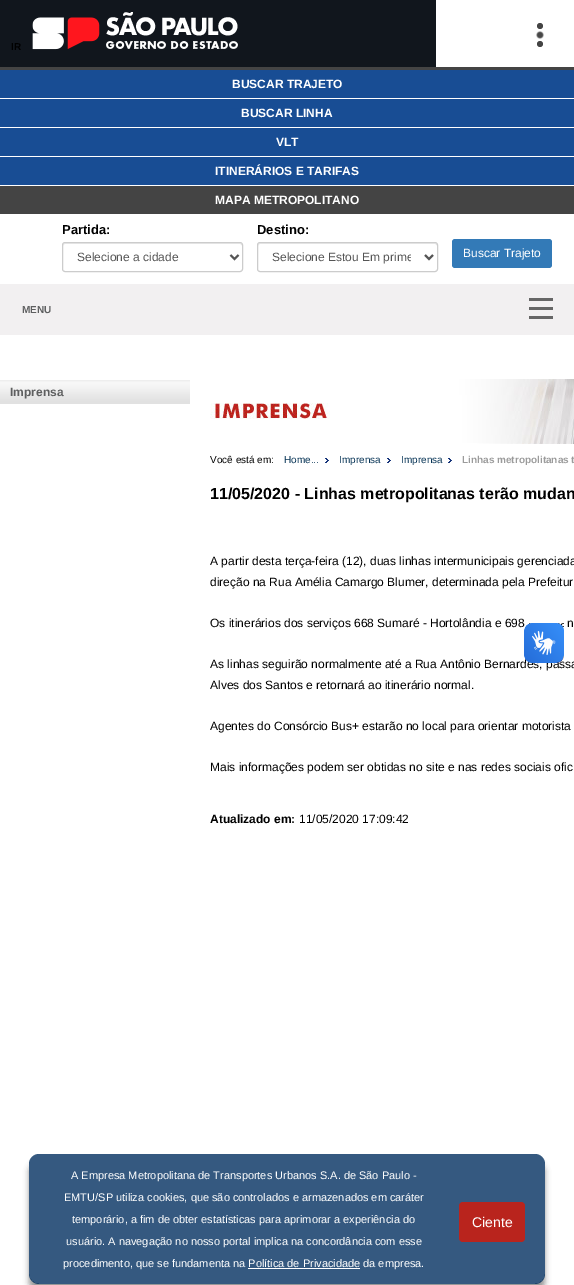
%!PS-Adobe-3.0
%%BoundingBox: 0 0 574 1285
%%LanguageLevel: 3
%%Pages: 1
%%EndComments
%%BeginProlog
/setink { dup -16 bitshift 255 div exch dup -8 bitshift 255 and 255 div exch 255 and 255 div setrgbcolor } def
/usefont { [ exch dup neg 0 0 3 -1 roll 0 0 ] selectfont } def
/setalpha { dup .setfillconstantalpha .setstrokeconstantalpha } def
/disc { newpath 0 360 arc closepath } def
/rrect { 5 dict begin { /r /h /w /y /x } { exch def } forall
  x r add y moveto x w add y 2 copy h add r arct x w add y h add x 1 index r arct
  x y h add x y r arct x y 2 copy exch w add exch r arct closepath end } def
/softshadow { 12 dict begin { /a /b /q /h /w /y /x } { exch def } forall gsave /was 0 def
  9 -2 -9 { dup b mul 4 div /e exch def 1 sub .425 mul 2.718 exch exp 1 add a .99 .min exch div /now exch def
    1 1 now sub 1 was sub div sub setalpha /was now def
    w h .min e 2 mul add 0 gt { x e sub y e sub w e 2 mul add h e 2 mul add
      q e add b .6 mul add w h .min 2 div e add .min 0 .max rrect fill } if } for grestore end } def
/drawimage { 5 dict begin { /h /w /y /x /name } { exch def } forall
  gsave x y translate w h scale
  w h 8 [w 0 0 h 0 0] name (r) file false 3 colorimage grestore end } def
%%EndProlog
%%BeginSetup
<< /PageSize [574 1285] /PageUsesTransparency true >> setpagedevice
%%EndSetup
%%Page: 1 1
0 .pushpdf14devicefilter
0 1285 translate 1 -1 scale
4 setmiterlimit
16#FFFFFF setink
0 0 574 1285 rectfill
16#444444 setink
0 67 574 3 rectfill
16#11161D setink
0 0 436 67 rectfill
/LiberationSans-Bold 10 usefont
16#000000 setink
11 50 moveto (IR) show
(img1.raw) 32 12 206 38 drawimage
16#444444 setink
540 26 3 disc fill
16#000000 setink
537 32 6 6 3 0.5 0.12 softshadow
537 32 6 6 3 0.5 0.16 softshadow
16#444444 setink
537 32 6 6 3 0.5 1 softshadow
540 44 3 disc fill
16#184D94 setink
0 70 574 28 rectfill
/LiberationSans-Bold 12 usefont
16#FFFFFF setink
232 88 moveto (BUSCAR TRAJETO) show
16#184D94 setink
0 99 574 28 rectfill
16#FFFFFF setink
241 117 moveto (BUSCAR LINHA) show
16#184D94 setink
0 128 574 28 rectfill
16#FFFFFF setink
276 146 moveto (VLT) show
16#184D94 setink
0 157 574 28 rectfill
16#FFFFFF setink
215 175 moveto (ITINERÁRIOS E TARIFAS) show
16#444444 setink
0 186 574 28 rectfill
16#FFFFFF setink
215 204 moveto (MAPA METROPOLITANO) show
/LiberationSans-Bold 13 usefont
16#000000 setink
62 234 moveto (Partida:) show
16#EBEBEB setink
65 244 moveto 240 244 lineto 241 244 242 245 242 246 curveto 242 245 242 243 240 243 curveto 64 243 lineto 63 244 63 245 63 246 curveto 63 245 64 244 65 244 curveto closepath fill
16#CCCCCC setink
62.5 242.5 180 29 2.5 rrect stroke
16#555555 setink
2 setlinewidth
230.5 255 moveto 234.5 259 lineto 238.5 255 lineto stroke
/LiberationSans-Regular 12 usefont
77 261 moveto (Selecione a cidade) show
/LiberationSans-Bold 13 usefont
16#000000 setink
257 234 moveto (Destino:) show
16#EBEBEB setink
260 244 moveto 435 244 lineto 436 244 437 245 437 246 curveto 437 245 437 243 435 243 curveto 259 243 lineto 258 244 258 245 258 246 curveto 258 245 259 244 260 244 curveto closepath fill
16#CCCCCC setink
1 setlinewidth
257.5 242.5 180 29 2.5 rrect stroke
16#555555 setink
2 setlinewidth
425 255 moveto 429 259 lineto 433 255 lineto stroke
gsave
272 249 139 16 rectclip
/LiberationSans-Regular 12 usefont
272 261 moveto (Selecione Estou Em prime) show
grestore
16#337AB7 setink
452 239 100 29 3 rrect fill
/LiberationSans-Regular 12 usefont
16#FFFFFF setink
463 257 moveto (Buscar Trajeto) show
16#F2F0F1 setink
0 284 574 51 rectfill
/LiberationSans-Bold 10 usefont
16#5E5F60 setink
22 313 moveto (MENU) show
(img2.raw) 529 298 24 21 drawimage
(img3.raw) 0 380 190 24 drawimage
/LiberationSans-Bold 12 usefont
10 396 moveto (Imprensa) show
(img4.raw) 210 379 364 65 drawimage
/LiberationSans-Regular 10 usefont
16#000000 setink
210 463 moveto (Você está em:) show
(img5.raw) 325 458 4 5 drawimage
16#063355 setink
284 463 moveto (Home...) show
(img5.raw) 387 458 4 5 drawimage
339 463 moveto (Imprensa) show
(img5.raw) 448 458 4 5 drawimage
401 463 moveto (Imprensa) show
/LiberationSans-Bold 10 usefont
16#9B9B9B setink
462 463 moveto (Linhas metropolitanas t) show
/LiberationSans-Bold 16 usefont
16#000000 setink
210 499 moveto (11/05/2020 - Linhas metropolitanas terão mudan) show
/LiberationSans-Regular 12 usefont
[
    [(A partir desta terça-feira \(12\), duas linhas intermunicipais gerenciada) 210 565]
    [(direção na Rua Amélia Camargo Blumer, determinada pela Prefeitur) 210 586]
    [(Os itinerários dos serviços 668 Sumaré - Hortolândia e 698) 210 627]
    [(n) 567 627]
    [(As linhas seguirão normalmente até a Rua Antônio Bernardes, passa) 210 668]
    [(Alves dos Santos e retornará ao itinerário normal.) 210 689]
    [(Agentes do Consórcio Bus+ estarão no local para orientar motorista) 210 730]
    [(Mais informações podem ser obtidas no site e nas redes sociais ofic) 210 771]
] { aload pop moveto show } forall
/LiberationSans-Bold 12 usefont
210 823 moveto (Atualizado em:) show
/LiberationSans-Regular 12 usefont
299 823 moveto (11/05/2020 17:09:42) show
(img6.raw) 524 623 40 40 drawimage
(img7.raw) 524 623 40 40 drawimage
gsave
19 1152 moveto 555 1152 lineto 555 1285 lineto 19 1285 lineto closepath 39 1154 moveto 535 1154 lineto 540.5 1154 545 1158.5 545 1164 curveto 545 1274 lineto 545 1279.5 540.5 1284 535 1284 curveto 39 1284 lineto 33.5 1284 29 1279.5 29 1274 curveto 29 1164 lineto 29 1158.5 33.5 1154 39 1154 curveto closepath eoclip newpath
29 1162 516 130 10 3 0.41 softshadow
grestore
0.8 setalpha
16#023060 setink
29 1154 516 130 10 rrect fill
/LiberationSans-Regular 11 usefont
1 setalpha
16#FFFFFF setink
[
    [(A Empresa Metropolitana de Transportes Urbanos S.A. de São Paulo -) 71 1179]
    [(EMTU/SP utiliza cookies, que são controlados e armazenados em caráter) 64 1201]
    [(temporário, a fim de obter estatísticas para aprimorar a experiência do) 72 1223]
    [(usuário. A navegação no nosso portal implica na concordância com esse) 66 1245]
    [(procedimento, que se fundamenta na Política de Privacidade da empresa.) 63 1267]
] { aload pop moveto show } forall
248 1268 112 1 rectfill
16#B9241D setink
459 1202 66 40 4 rrect fill
/LiberationSans-Regular 14 usefont
16#FFFFFF setink
472 1227 moveto (Ciente) show
.poppdf14devicefilter showpage
%%EOF
